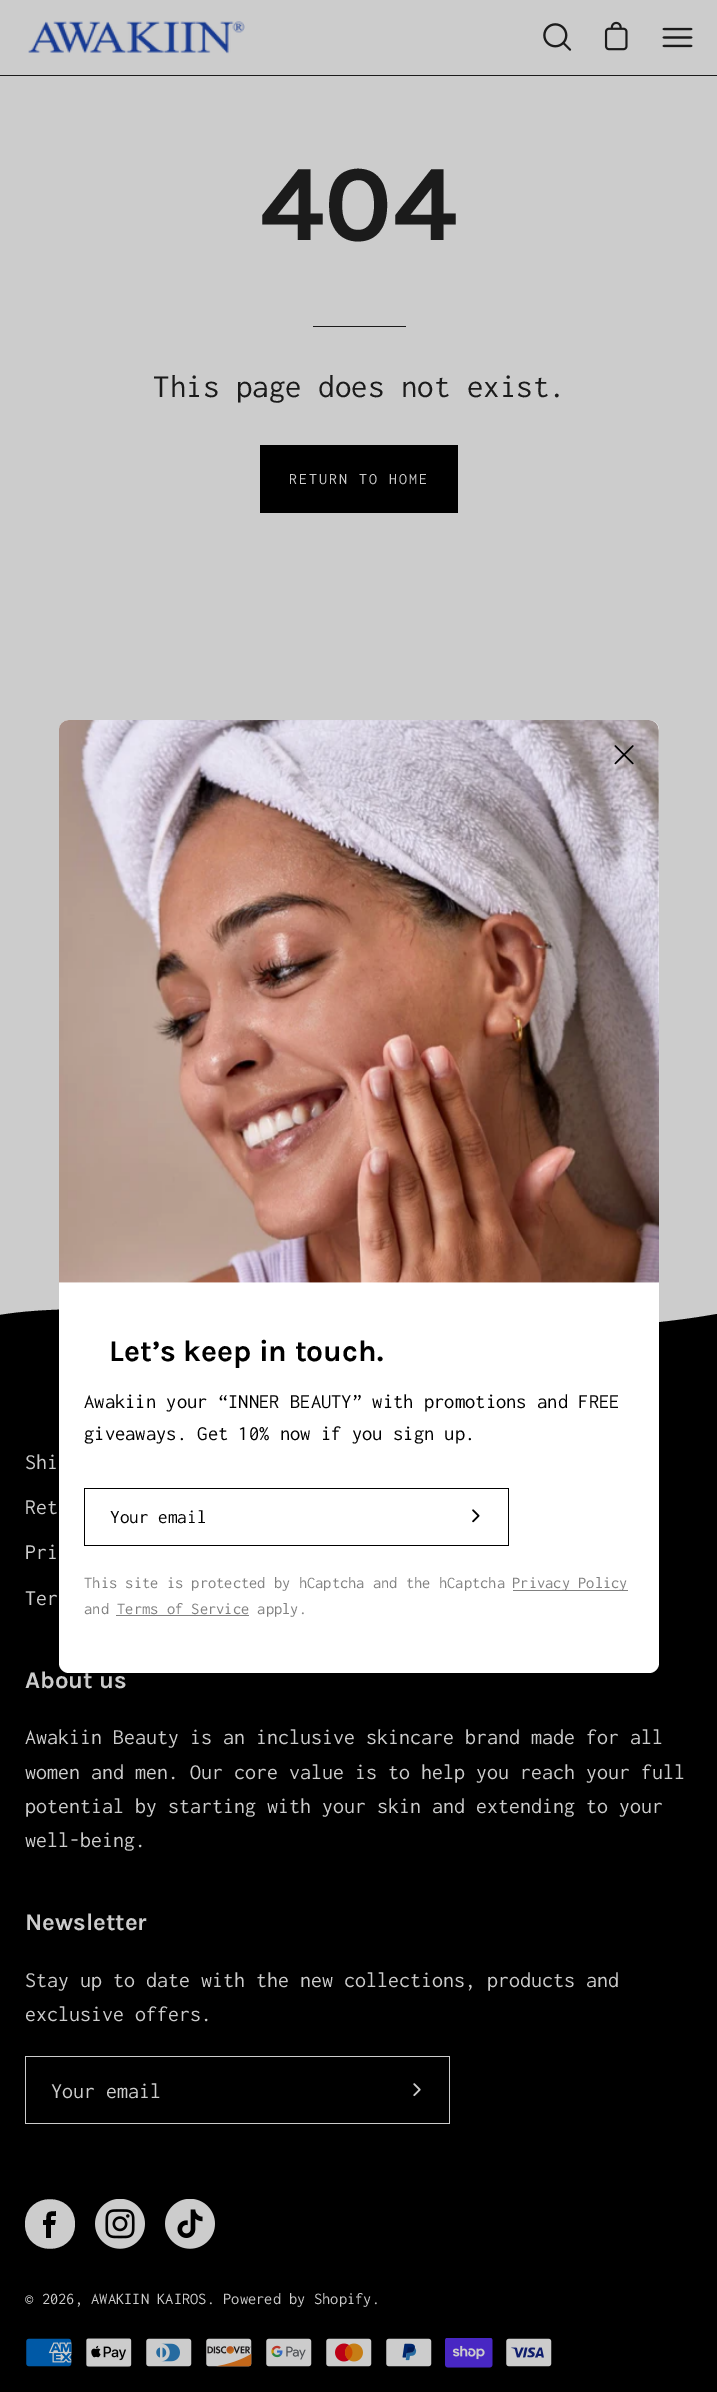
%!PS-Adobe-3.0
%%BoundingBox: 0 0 717 2392
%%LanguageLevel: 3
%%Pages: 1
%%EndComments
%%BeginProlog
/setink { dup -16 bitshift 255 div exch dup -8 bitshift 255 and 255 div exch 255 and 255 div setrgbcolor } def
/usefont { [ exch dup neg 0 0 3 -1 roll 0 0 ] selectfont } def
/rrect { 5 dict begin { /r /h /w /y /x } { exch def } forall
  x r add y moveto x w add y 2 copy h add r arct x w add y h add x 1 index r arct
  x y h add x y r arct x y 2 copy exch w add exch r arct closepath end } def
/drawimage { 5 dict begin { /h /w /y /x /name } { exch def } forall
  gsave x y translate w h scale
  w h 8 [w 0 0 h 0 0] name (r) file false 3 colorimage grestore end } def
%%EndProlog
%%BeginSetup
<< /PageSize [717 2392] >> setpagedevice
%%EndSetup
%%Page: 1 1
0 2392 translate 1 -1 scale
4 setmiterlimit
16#CCCCCC setink
0 0 717 2392 rectfill
16#1B1B1B setink
0 75 moveto 0 76 lineto 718 76 lineto 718 1 lineto 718 75 lineto closepath fill
(img1.raw) 28 21 217 33 drawimage
(img2.raw) 543 23 29 28 drawimage
(img3.raw) 604 21 24 30 drawimage
(img4.raw) 662 27 31 21 drawimage
/Karla-Bold 108 usefont
260 240 moveto (404) show
313 326 93 1 rectfill
/Inconsolata-Regular 33 usefont
153 397 moveto (This page does not exist.) show
16#000000 setink
260 445 198 68 rectfill
/Inconsolata-Regular 16 usefont
16#CCCCCC setink
289 484 moveto 2 0 (RETURN TO HOME) ashow
16#000000 setink
0 1371 717 1021 rectfill
0 1315 moveto 82 1301 246 1315 359 1326 curveto 451 1337 625 1331 717 1314 curveto 717 1345 lineto 0 1345 lineto fill
gsave
0 1309 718 62 rectclip
0 1328 moveto 82 1316 236 1320 359 1332 curveto 441 1340 625 1342 717 1329 curveto 717 1391 lineto 0 1391 lineto closepath fill
grestore
/Inconsolata-Regular 22 usefont
16#CCCCCC setink
[
    [(Shi) 25 1469]
    [(Ret) 25 1514]
    [(Pri) 25 1559]
    [(Ter) 25 1605]
] { aload pop moveto show } forall
/Karla-Bold 24 usefont
25 1688 moveto (About us) show
/Inconsolata-Regular 22 usefont
[
    [(Awakiin Beauty is an inclusive skincare brand made for all) 25 1744]
    [(women and men. Our core value is to help you reach your full) 25 1779]
    [(potential by starting with your skin and extending to your) 25 1813]
    [(well-being.) 25 1847]
] { aload pop moveto show } forall
/Karla-Bold 24 usefont
25 1930 moveto (Newsletter) show
/Inconsolata-Regular 22 usefont
25 1987 moveto (Stay up to date with the new collections, products and) show
25 2021 moveto (exclusive offers.) show
[
    [25 2056 425 1 16#CCCCCC]
    [25 2123 360 1 16#CCCCCC]
    [25 2056 1 68 16#CCCCCC]
] { aload pop setink rectfill } forall
51 2098 moveto (Your email) show
449 2056 1 68 rectfill
385 2123 65 1 rectfill
(img5.raw) 413 2083 8 14 drawimage
25 2224 moveto 25 2191 75 2191 75 2224 curveto 75 2257 25 2257 25 2224 curveto closepath 51 2238 moveto 51 2225 lineto 55 2225 lineto 56 2220 lineto 51 2220 lineto 51 2216 51 2216 56 2216 curveto 56 2211 lineto 47 2211 46 2212 46 2220 curveto 43 2220 lineto 43 2225 lineto 46 2225 lineto 46 2238 lineto closepath fill
(img6.raw) 95 2199 50 50 drawimage
(img7.raw) 165 2199 50 50 drawimage
/Inconsolata-Regular 16.5 usefont
25 2304 moveto (© 2026, AWAKIIN KAIROS. Powered by Shopify.) show
(img8.raw) 26 2338 46 29 drawimage
(img9.raw) 86 2338 46 29 drawimage
(img10.raw) 146 2338 46 29 drawimage
(img11.raw) 206 2338 46 29 drawimage
(img12.raw) 266 2338 46 29 drawimage
(img13.raw) 326 2338 46 29 drawimage
(img14.raw) 386 2338 46 29 drawimage
(img15.raw) 445 2338 48 30 drawimage
(img16.raw) 506 2338 46 29 drawimage
16#FFFFFF setink
59 720 600 953 10 rrect fill
(img18.raw) 59 720 600 563 drawimage
(img17.raw) 614 745 20 20 drawimage
/Karla-Bold 30 usefont
16#000000 setink
109 1361 moveto (Let’s keep in touch.) show
/Inconsolata-Regular 20.6 usefont
84 1408 moveto (Awakiin your “INNER BEAUTY” with promotions and FREE) show
84 1440 moveto (giveaways. Get 10% now if you sign up.) show
[
    [84 1488 425 1 16#000000]
    [84 1545 360 1 16#000000]
    [84 1488 1 58 16#000000]
] { aload pop setink rectfill } forall
/Inconsolata-Regular 19.25 usefont
110 1523 moveto (Your email) show
508 1488 1 58 rectfill
444 1545 65 1 rectfill
(img19.raw) 472 1509 8 14 drawimage
/Inconsolata-Regular 16.5 usefont
16#808080 setink
84 1588 moveto (This site is protected by hCaptcha and the hCaptcha) show
513 1590 115 1 rectfill
512 1588 moveto (Privacy Policy) show
84 1614 moveto (and Terms of Service apply.) show
116 1615 133 1 rectfill
showpage
%%EOF
